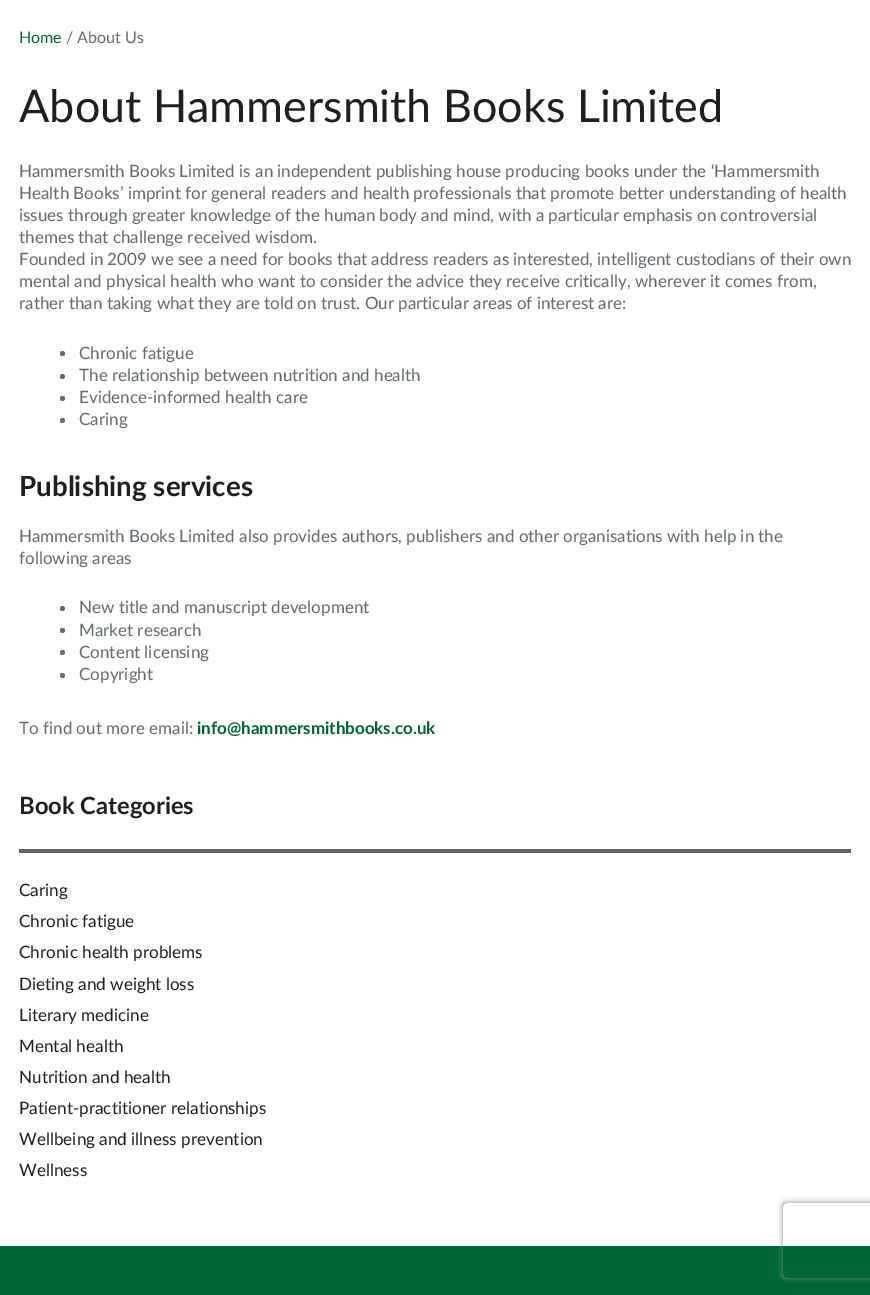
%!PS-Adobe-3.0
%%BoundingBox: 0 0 870 1295
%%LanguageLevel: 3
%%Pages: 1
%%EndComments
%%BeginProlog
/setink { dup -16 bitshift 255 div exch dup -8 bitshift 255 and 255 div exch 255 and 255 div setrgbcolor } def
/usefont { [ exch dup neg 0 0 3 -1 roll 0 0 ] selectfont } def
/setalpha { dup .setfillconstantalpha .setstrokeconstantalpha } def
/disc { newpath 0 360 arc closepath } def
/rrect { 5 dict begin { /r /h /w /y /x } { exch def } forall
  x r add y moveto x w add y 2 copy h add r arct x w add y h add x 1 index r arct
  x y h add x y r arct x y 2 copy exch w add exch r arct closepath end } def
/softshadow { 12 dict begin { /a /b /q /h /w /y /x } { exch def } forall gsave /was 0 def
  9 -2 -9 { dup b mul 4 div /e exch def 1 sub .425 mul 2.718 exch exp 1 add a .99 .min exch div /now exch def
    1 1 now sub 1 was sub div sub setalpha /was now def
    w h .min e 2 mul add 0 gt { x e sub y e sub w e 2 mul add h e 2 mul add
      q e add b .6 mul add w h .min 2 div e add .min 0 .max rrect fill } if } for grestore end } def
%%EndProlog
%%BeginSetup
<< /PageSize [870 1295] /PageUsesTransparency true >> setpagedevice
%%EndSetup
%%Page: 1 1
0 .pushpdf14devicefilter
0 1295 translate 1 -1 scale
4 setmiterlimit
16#FFFFFF setink
0 0 870 1295 rectfill
/Lato-Regular 16 usefont
16#006633 setink
19 43 moveto (Home) show
16#606A70 setink
66 43 moveto (/ About Us) show
/Lato-Regular 44.9 usefont
16#1F1F1F setink
19 122 moveto (About Hammersmith Books Limited) show
/Lato-Regular 17 usefont
16#606A70 setink
[
    [(Hammersmith Books Limited is an independent publishing house producing books under the ‘Hammersmith) 19 177]
    [(Health Books’ imprint for general readers and health professionals that promote better understanding of health) 19 199]
    [(issues through greater knowledge of the human body and mind, with a particular emphasis on controversial) 19 221]
    [(themes that challenge received wisdom.) 19 243]
    [(Founded in 2009 we see a need for books that address readers as interested, intelligent custodians of their own) 19 265]
    [(mental and physical health who want to consider the advice they receive critically, wherever it comes from,) 19 287]
    [(rather than taking what they are told on trust. Our particular areas of interest are:) 19 309]
] { aload pop moveto show } forall
62.5 353.5 2.5 disc fill
79 359 moveto (Chronic fatigue) show
62.5 376.5 2.5 disc fill
79 381 moveto (The relationship between nutrition and health) show
62.5 398.5 2.5 disc fill
79 403 moveto (Evidence-informed health care) show
62.5 420.5 2.5 disc fill
79 425 moveto (Caring) show
/Lato-Bold 27.75 usefont
16#1F1F1F setink
19 496 moveto (Publishing services) show
/Lato-Regular 17 usefont
16#606A70 setink
19 542 moveto (Hammersmith Books Limited also provides authors, publishers and other organisations with help in the) show
19 564 moveto (following areas) show
62.5 608.5 2.5 disc fill
79 613 moveto (New title and manuscript development) show
62.5 630.5 2.5 disc fill
79 636 moveto (Market research) show
62.5 652.5 2.5 disc fill
79 658 moveto (Content licensing) show
62.5 675.5 2.5 disc fill
79 680 moveto (Copyright) show
19 734 moveto (To find out more email:) show
/Lato-Bold 17 usefont
16#006633 setink
197 734 moveto (info@hammersmithbooks.co.uk) show
16#60646C setink
19 849 832 4 rectfill
/Lato-Bold 23.75 usefont
16#1F1F1F setink
19 814 moveto (Book Categories) show
/Lato-Regular 17.1 usefont
[
    [(Caring) 19 896]
    [(Chronic fatigue) 19 927]
    [(Chronic health problems) 19 958]
    [(Dieting and weight loss) 19 990]
    [(Literary medicine) 19 1021]
    [(Mental health) 19 1052]
    [(Nutrition and health) 19 1083]
    [(Patient-practitioner relationships) 19 1114]
    [(Wellbeing and illness prevention) 19 1145]
    [(Wellness) 19 1176]
] { aload pop moveto show } forall
16#006633 setink
0 1246 870 49 rectfill
gsave
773 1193 moveto 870 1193 lineto 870 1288 lineto 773 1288 lineto closepath 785.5 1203 moveto 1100.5 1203 lineto 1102 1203 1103 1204 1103 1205.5 curveto 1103 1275.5 lineto 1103 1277 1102 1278 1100.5 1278 curveto 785.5 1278 lineto 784 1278 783 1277 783 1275.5 curveto 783 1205.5 lineto 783 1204 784 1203 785.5 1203 curveto closepath eoclip newpath
16#808080 setink
783 1203 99 75 2.5 3 1 softshadow
grestore
.poppdf14devicefilter showpage
%%EOF
